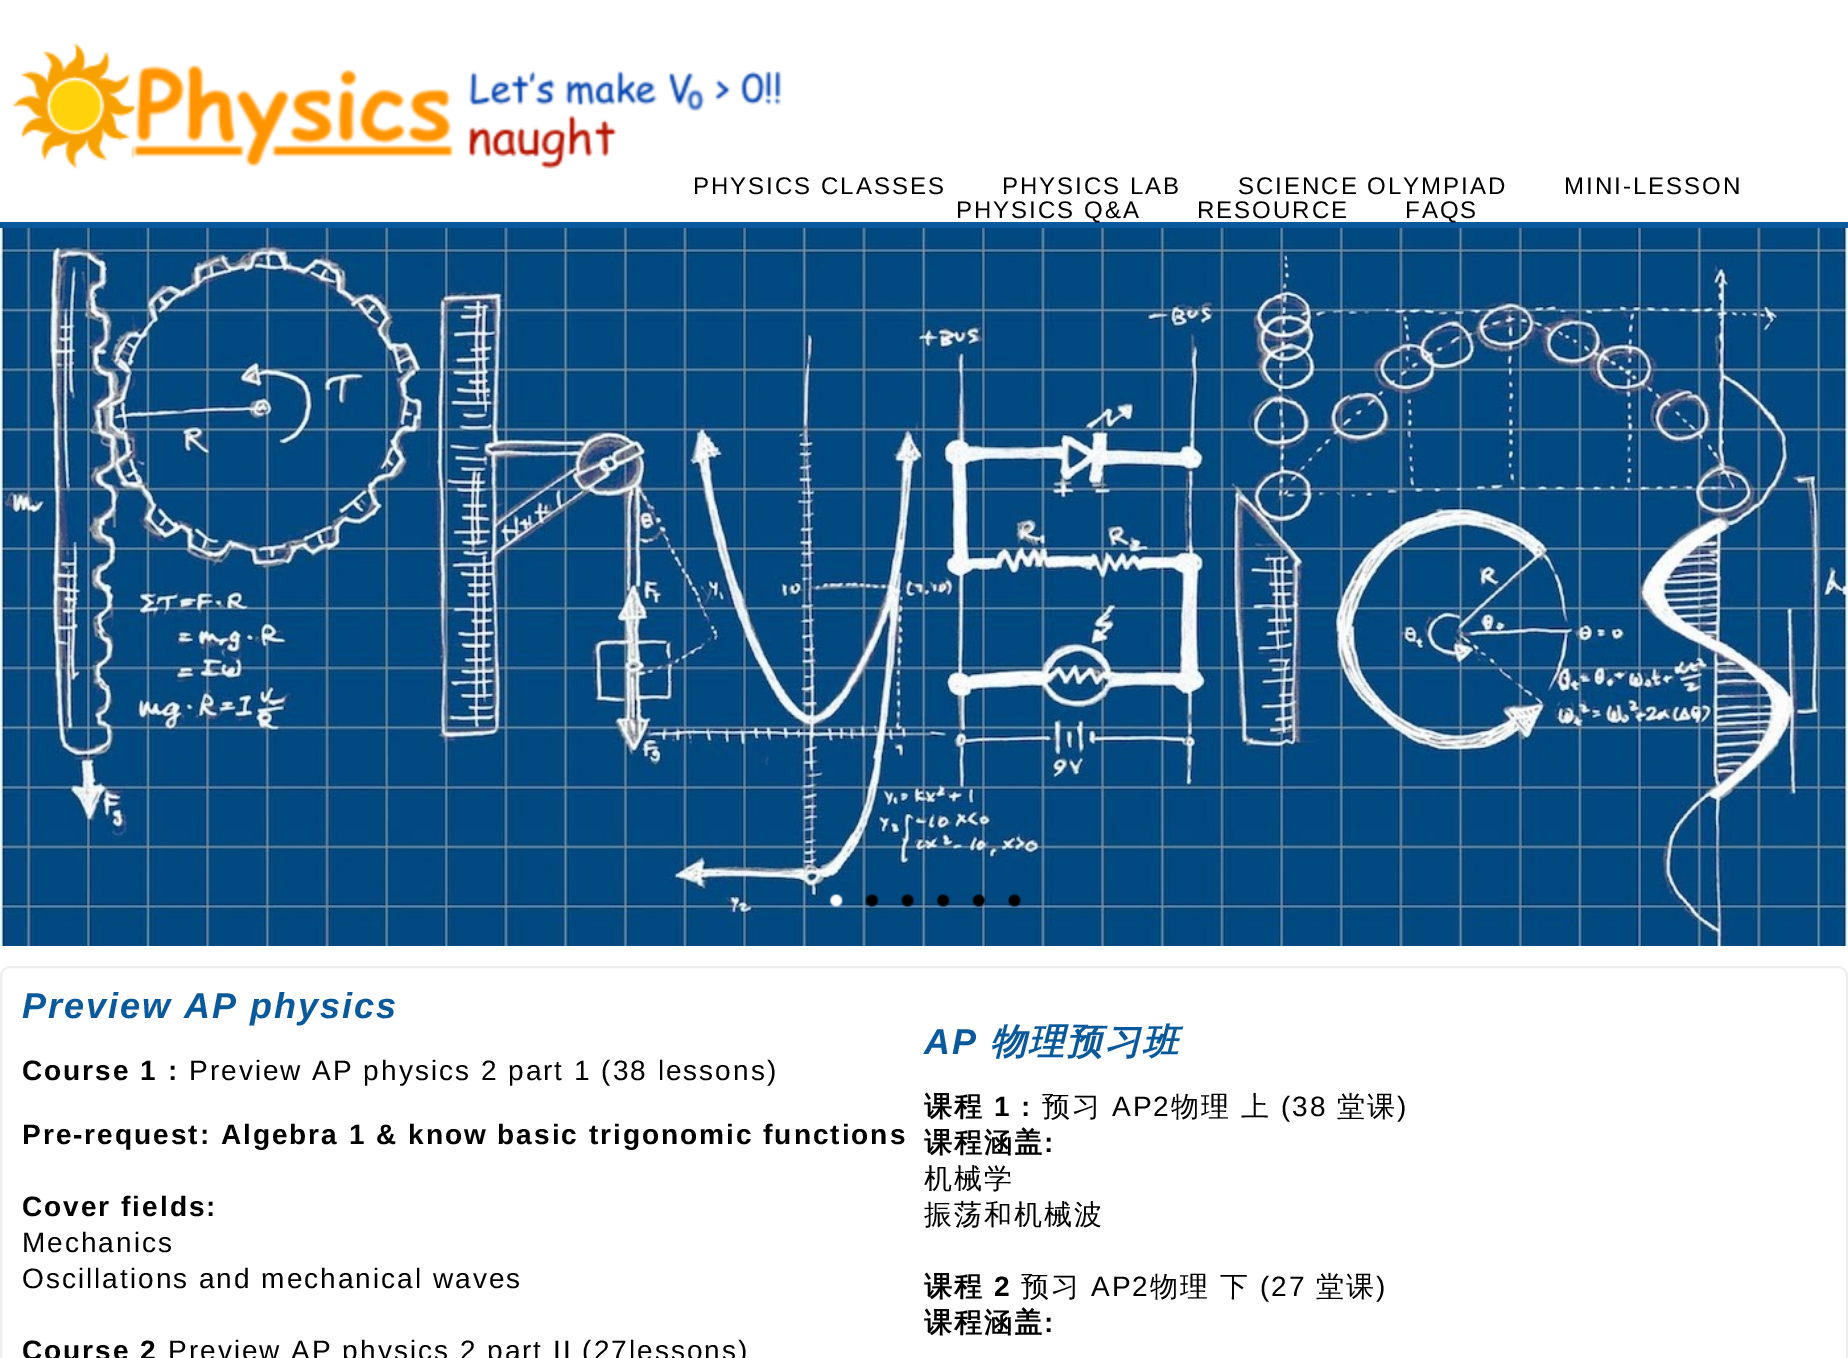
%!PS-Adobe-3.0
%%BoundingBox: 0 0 1848 1358
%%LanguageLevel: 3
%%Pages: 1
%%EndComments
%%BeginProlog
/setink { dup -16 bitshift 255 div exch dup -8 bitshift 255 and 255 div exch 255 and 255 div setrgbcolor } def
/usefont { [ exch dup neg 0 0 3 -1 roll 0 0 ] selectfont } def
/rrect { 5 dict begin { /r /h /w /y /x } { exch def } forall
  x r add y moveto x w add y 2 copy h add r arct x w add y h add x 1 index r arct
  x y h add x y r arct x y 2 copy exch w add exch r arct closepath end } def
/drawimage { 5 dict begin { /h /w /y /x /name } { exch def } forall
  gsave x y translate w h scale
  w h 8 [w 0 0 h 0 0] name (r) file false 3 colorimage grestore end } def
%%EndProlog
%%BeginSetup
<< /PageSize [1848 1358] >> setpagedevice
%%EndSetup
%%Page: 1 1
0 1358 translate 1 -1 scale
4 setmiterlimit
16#FFFFFF setink
0 0 1848 1358 rectfill
16#09599C setink
0 222 1848 6 rectfill
(img1.raw) 12 43 770 126 drawimage
/LiberationSans-Regular 24 usefont
16#000000 setink
693 194 moveto 2 0 (PHYSICS CLASSES) ashow
1002 194 moveto 2 0 (PHYSICS LAB) ashow
1238 194 moveto 2 0 (SCIENCE OLYMPIAD) ashow
1564 194 moveto 2 0 (MINI-LESSON) ashow
956 218 moveto 2 0 (PHYSICS Q&A) ashow
1197 218 moveto 2 0 (RESOURCE) ashow
1405 218 moveto 2 0 (FAQS) ashow
(img2.raw) 0 228 1848 718 drawimage
(img3.raw) 829 893 14 14 drawimage
(img4.raw) 865 893 14 14 drawimage
(img5.raw) 901 893 14 14 drawimage
(img6.raw) 936 893 14 14 drawimage
(img7.raw) 972 893 14 14 drawimage
(img8.raw) 1008 893 14 14 drawimage
16#EEEEEE setink
2 setlinewidth
1 967 1846 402 9 rrect stroke
/LiberationSans-BoldItalic 36 usefont
16#09599C setink
22 1018 moveto 2 0 (Preview AP physics) ashow
/LiberationSans-Bold 28 usefont
16#000000 setink
22 1080 moveto 2 0 (Course 1 :) ashow
/LiberationSans-Regular 28 usefont
189 1080 moveto 2 0 (Preview AP physics 2 part 1 \(38 lessons\)) ashow
/LiberationSans-Bold 28 usefont
22 1144 moveto 2 0 (Pre-request: Algebra 1 & know basic trigonomic functions) ashow
22 1216 moveto 2 0 (Cover fields:) ashow
/LiberationSans-Regular 28 usefont
22 1252 moveto 2 0 (Mechanics) ashow
22 1288 moveto 2 0 (Oscillations and mechanical waves) ashow
/LiberationSans-Bold 28 usefont
22 1360 moveto 2 0 (Course 2) ashow
/LiberationSans-Regular 28 usefont
168 1360 moveto 2 0 (Preview AP physics 2 part II \(27lessons\)) ashow
/LiberationSans-BoldItalic 36 usefont
16#09599C setink
924 1054 moveto 2 0 (AP) ashow
/WenQuanYiZenHei-BoldItalic 36 usefont
990 1054 moveto 2 0 (物理预习班) ashow
/WenQuanYiZenHei-Bold 28 usefont
16#000000 setink
924 1116 moveto 2 0 (课程) ashow
/LiberationSans-Bold 28 usefont
994 1116 moveto 2 0 (1 :) ashow
/WenQuanYiZenHei-Medium 28 usefont
1042 1116 moveto 2 0 (预习) ashow
/LiberationSans-Regular 28 usefont
1112 1116 moveto 2 0 (AP2) ashow
/WenQuanYiZenHei-Medium 28 usefont
1171 1116 moveto 2 0 (物理 上) ashow
/LiberationSans-Regular 28 usefont
1281 1116 moveto 2 0 (\(38) ashow
/WenQuanYiZenHei-Medium 28 usefont
1337 1116 moveto 2 0 (堂课) ashow
/LiberationSans-Regular 28 usefont
1397 1116 moveto 2 0 (\)) ashow
/WenQuanYiZenHei-Bold 28 usefont
924 1152 moveto 2 0 (课程涵盖) ashow
/LiberationSans-Bold 28 usefont
1044 1152 moveto 2 0 (:) ashow
/WenQuanYiZenHei-Medium 28 usefont
924 1188 moveto 2 0 (机械学) ashow
924 1224 moveto 2 0 (振荡和机械波) ashow
/WenQuanYiZenHei-Bold 28 usefont
924 1296 moveto 2 0 (课程) ashow
/LiberationSans-Bold 28 usefont
994 1296 moveto 2 0 (2) ashow
/WenQuanYiZenHei-Medium 28 usefont
1021 1296 moveto 2 0 (预习) ashow
/LiberationSans-Regular 28 usefont
1091 1296 moveto 2 0 (AP2) ashow
/WenQuanYiZenHei-Medium 28 usefont
1150 1296 moveto 2 0 (物理 下) ashow
/LiberationSans-Regular 28 usefont
1260 1296 moveto 2 0 (\(27) ashow
/WenQuanYiZenHei-Medium 28 usefont
1316 1296 moveto 2 0 (堂课) ashow
/LiberationSans-Regular 28 usefont
1376 1296 moveto 2 0 (\)) ashow
/WenQuanYiZenHei-Bold 28 usefont
924 1332 moveto 2 0 (课程涵盖) ashow
/LiberationSans-Bold 28 usefont
1044 1332 moveto 2 0 (:) ashow
showpage
%%EOF
